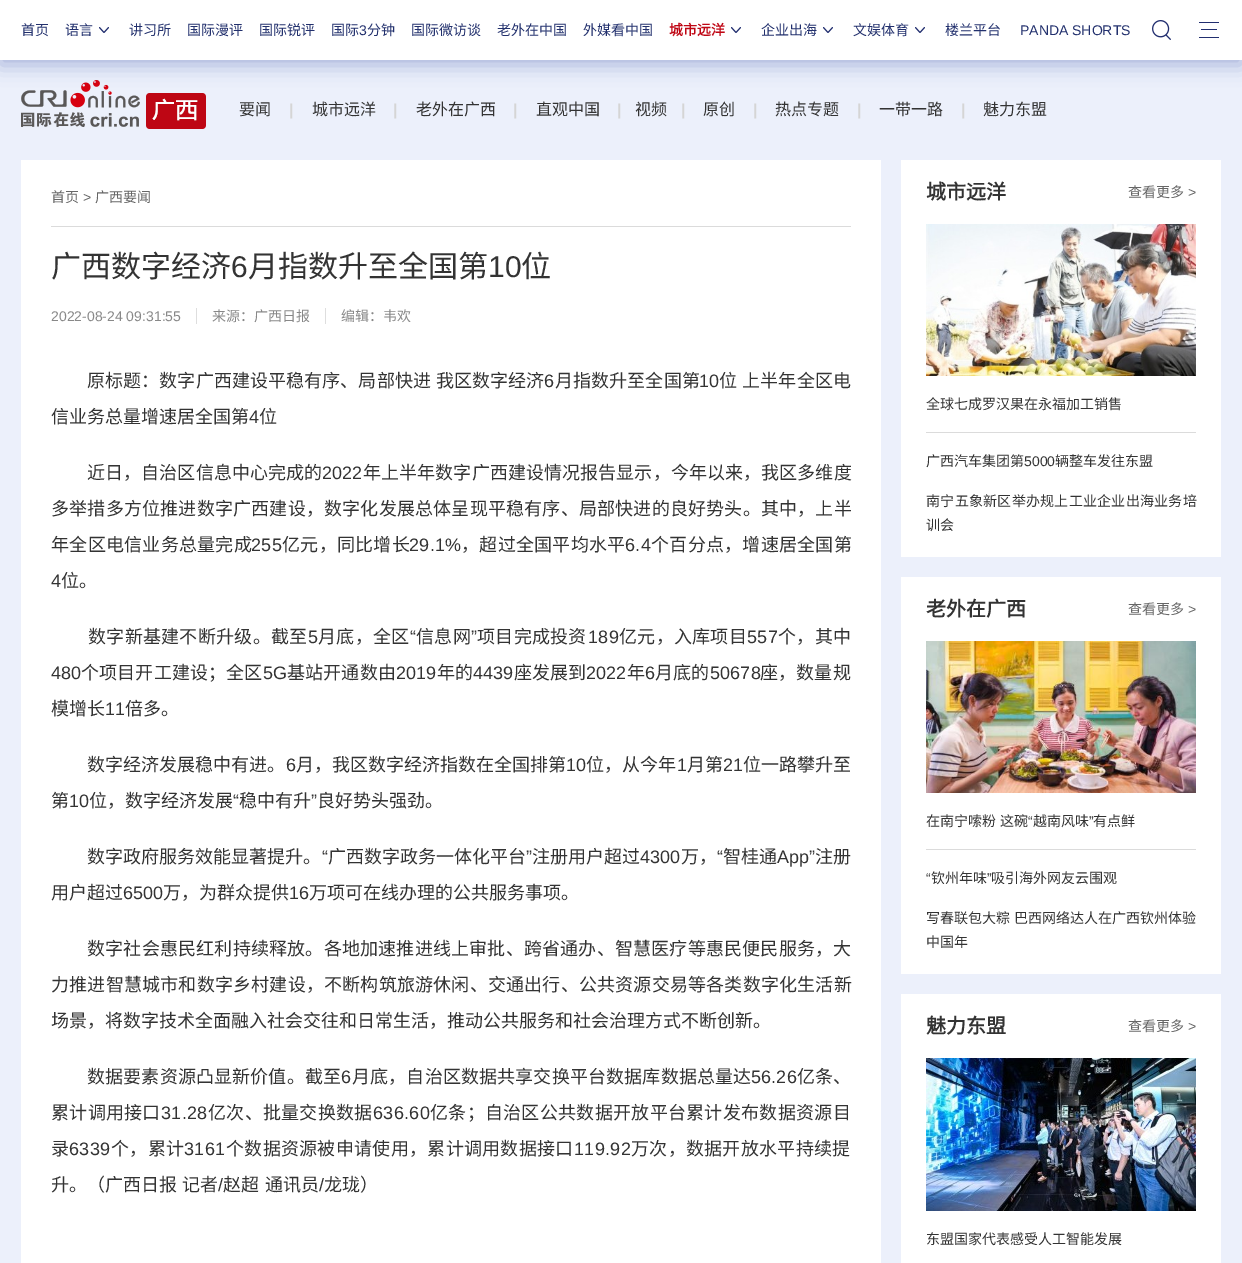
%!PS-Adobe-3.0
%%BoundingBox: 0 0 1242 1263
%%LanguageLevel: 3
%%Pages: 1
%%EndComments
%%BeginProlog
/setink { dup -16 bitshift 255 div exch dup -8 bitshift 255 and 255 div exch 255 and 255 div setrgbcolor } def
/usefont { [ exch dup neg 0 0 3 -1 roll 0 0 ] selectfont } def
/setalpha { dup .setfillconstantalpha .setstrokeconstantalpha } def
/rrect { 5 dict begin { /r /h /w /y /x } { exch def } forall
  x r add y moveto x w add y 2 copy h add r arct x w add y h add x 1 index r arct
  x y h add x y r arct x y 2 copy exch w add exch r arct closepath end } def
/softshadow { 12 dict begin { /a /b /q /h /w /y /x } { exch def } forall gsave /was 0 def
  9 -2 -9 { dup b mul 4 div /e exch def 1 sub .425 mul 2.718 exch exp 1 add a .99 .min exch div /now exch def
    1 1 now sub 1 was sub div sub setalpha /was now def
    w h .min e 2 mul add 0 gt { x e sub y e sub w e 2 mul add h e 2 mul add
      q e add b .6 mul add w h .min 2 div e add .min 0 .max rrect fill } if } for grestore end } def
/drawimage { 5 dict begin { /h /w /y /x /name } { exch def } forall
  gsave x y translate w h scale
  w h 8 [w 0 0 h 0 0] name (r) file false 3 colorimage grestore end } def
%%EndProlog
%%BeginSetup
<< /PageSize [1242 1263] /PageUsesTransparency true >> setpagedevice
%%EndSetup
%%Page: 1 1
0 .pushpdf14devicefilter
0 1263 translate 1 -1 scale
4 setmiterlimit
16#ECF0FB setink
0 0 1242 1263 rectfill
(img4.raw) 21 80 185 49 drawimage
16#4356AA setink
0 5 1242 60 0 10 0.4 softshadow
16#FFFFFF setink
0 0 1242 60 rectfill
/NotoSansCJKSC-Regular 14 usefont
16#22306D setink
21 35 moveto (首页) show
65 35 moveto (语言) show
(img1.raw) 99 27 10 6 drawimage
[
    [(讲习所) 129 35]
    [(国际漫评) 187 35]
    [(国际锐评) 259 35]
    [(国际) 331 35]
] { aload pop moveto show } forall
/LiberationSans-Regular 14 usefont
359 35 moveto (3) show
/NotoSansCJKSC-Regular 14 usefont
[
    [(分钟) 367 35]
    [(国际微访谈) 411 35]
    [(老外在中国) 497 35]
    [(外媒看中国) 583 35]
] { aload pop moveto show } forall
/NotoSansCJKSC-Bold 14 usefont
16#BF0614 setink
669 35 moveto (城市远洋) show
(img1.raw) 731 27 10 6 drawimage
/NotoSansCJKSC-Regular 14 usefont
16#22306D setink
761 35 moveto (企业出海) show
(img1.raw) 823 27 10 6 drawimage
853 35 moveto (文娱体育) show
(img1.raw) 915 27 10 6 drawimage
945 35 moveto (楼兰平台) show
/LiberationSans-Regular 14 usefont
1020 35 moveto (PANDA SHORTS) show
(img2.raw) 1152 20 19 20 drawimage
(img3.raw) 1199 22 20 16 drawimage
/NotoSansCJKSC-Regular 16 usefont
16#333333 setink
239 115 moveto (要闻) show
/LiberationSans-Bold 16 usefont
16#D5D5D5 setink
289 115 moveto (|) show
/NotoSansCJKSC-Regular 16 usefont
16#333333 setink
312 115 moveto (城市远洋) show
/LiberationSans-Bold 16 usefont
16#D5D5D5 setink
393 115 moveto (|) show
/NotoSansCJKSC-Regular 16 usefont
16#333333 setink
416 115 moveto (老外在广西) show
/LiberationSans-Bold 16 usefont
16#D5D5D5 setink
513 115 moveto (|) show
/NotoSansCJKSC-Regular 16 usefont
16#333333 setink
536 115 moveto (直观中国) show
/LiberationSans-Bold 16 usefont
16#D5D5D5 setink
617 115 moveto (|) show
/NotoSansCJKSC-Regular 16 usefont
16#333333 setink
635 115 moveto (视频) show
/LiberationSans-Bold 16 usefont
16#D5D5D5 setink
681 115 moveto (|) show
/NotoSansCJKSC-Regular 16 usefont
16#333333 setink
703 115 moveto (原创) show
/LiberationSans-Bold 16 usefont
16#D5D5D5 setink
753 115 moveto (|) show
/NotoSansCJKSC-Regular 16 usefont
16#333333 setink
775 115 moveto (热点专题) show
/LiberationSans-Bold 16 usefont
16#D5D5D5 setink
857 115 moveto (|) show
/NotoSansCJKSC-Regular 16 usefont
16#333333 setink
879 115 moveto (一带一路) show
/LiberationSans-Bold 16 usefont
16#D5D5D5 setink
961 115 moveto (|) show
/NotoSansCJKSC-Regular 16 usefont
16#333333 setink
983 115 moveto (魅力东盟) show
16#FFFFFF setink
21 160 860 1103 rectfill
16#DBDBDB setink
51 226 800 1 rectfill
/NotoSansCJKSC-Regular 14 usefont
16#666666 setink
51 202 moveto (首页) show
/LiberationSans-Regular 14 usefont
83 202 moveto (>) show
/NotoSansCJKSC-Regular 14 usefont
95 202 moveto (广西要闻) show
/NotoSansCJKSC-Regular 30 usefont
16#333333 setink
51 277 moveto (广西数字经济) show
/LiberationSans-Regular 30 usefont
231 277 moveto (6) show
/NotoSansCJKSC-Regular 30 usefont
248 277 moveto (月指数升至全国第) show
/LiberationSans-Regular 30 usefont
488 277 moveto (10) show
/NotoSansCJKSC-Regular 30 usefont
521 277 moveto (位) show
/LiberationSans-Regular 14 usefont
16#888888 setink
51 321 moveto (2022-08-24 09:31:55) show
/NotoSansCJKSC-Regular 14 usefont
212 321 moveto (来源：广西日报) show
16#DEDEDE setink
196 308 1 16 rectfill
16#888888 setink
341 321 moveto (编辑：韦欢) show
16#DEDEDE setink
325 308 1 16 rectfill
/NotoSansCJKSC-Regular 18 usefont
16#333333 setink
87 387 moveto 1 0 32 0.1 0 (原标题：数字广西建设平稳有序、局部快进 我区数字经济) awidthshow
/LiberationSans-Regular 18 usefont
544 387 moveto 0.1 0 (6) ashow
/NotoSansCJKSC-Regular 18 usefont
555 387 moveto 0.1 0 (月指数升至全国第) ashow
/LiberationSans-Regular 18 usefont
699 387 moveto 0.1 0 (10) ashow
/NotoSansCJKSC-Regular 18 usefont
719 387 moveto 1 0 32 0.1 0 (位 上半年全区电) awidthshow
51 423 moveto (信业务总量增速居全国第) show
/LiberationSans-Regular 18 usefont
249 423 moveto (4) show
/NotoSansCJKSC-Regular 18 usefont
259 423 moveto (位) show
87 479 moveto 0.1 0 (近日，自治区信息中心完成的) ashow
/LiberationSans-Regular 18 usefont
322 479 moveto 0.1 0 (2022) ashow
/NotoSansCJKSC-Regular 18 usefont
363 479 moveto 0.1 0 (年上半年数字广西建设情况报告显示，今年以来，我区多维度) ashow
51 515 moveto 0.2 0 (多举措多方位推进数字广西建设，数字化发展总体呈现平稳有序、局部快进的良好势头。其中，上半) ashow
51 551 moveto 0.25 0 (年全区电信业务总量完成) ashow
/LiberationSans-Regular 18 usefont
251 551 moveto 0.25 0 (255) ashow
/NotoSansCJKSC-Regular 18 usefont
282 551 moveto 0.25 0 (亿元，同比增长) ashow
/LiberationSans-Regular 18 usefont
409 551 moveto 0.25 0 (29.1%) ashow
/NotoSansCJKSC-Regular 18 usefont
461 551 moveto 0.25 0 (，超过全国平均水平) ashow
/LiberationSans-Regular 18 usefont
625 551 moveto 0.25 0 (6.4) ashow
/NotoSansCJKSC-Regular 18 usefont
651 551 moveto 0.25 0 (个百分点，增速居全国第) ashow
/LiberationSans-Regular 18 usefont
51 587 moveto (4) show
/NotoSansCJKSC-Regular 18 usefont
61 587 moveto (位。) show
88 643 moveto 0.3 0 (数字新基建不断升级。截至) ashow
/LiberationSans-Regular 18 usefont
308 643 moveto 0.3 0 (5) ashow
/NotoSansCJKSC-Regular 18 usefont
318 643 moveto 0.3 0 (月底，全区) ashow
/LiberationSans-Regular 18 usefont
410 643 moveto 0.3 0 (“) ashow
/NotoSansCJKSC-Regular 18 usefont
416 643 moveto 0.3 0 (信息网) ashow
/LiberationSans-Regular 18 usefont
471 643 moveto 0.3 0 (”) ashow
/NotoSansCJKSC-Regular 18 usefont
477 643 moveto 0.3 0 (项目完成投资) ashow
/LiberationSans-Regular 18 usefont
588 643 moveto 0.3 0 (189) ashow
/NotoSansCJKSC-Regular 18 usefont
619 643 moveto 0.3 0 (亿元，入库项目) ashow
/LiberationSans-Regular 18 usefont
747 643 moveto 0.3 0 (557) ashow
/NotoSansCJKSC-Regular 18 usefont
778 643 moveto 0.3 0 (个，其中) ashow
/LiberationSans-Regular 18 usefont
51 679 moveto 0.15 0 (480) ashow
/NotoSansCJKSC-Regular 18 usefont
81 679 moveto 0.15 0 (个项目开工建设；全区) ashow
/LiberationSans-Regular 18 usefont
263 679 moveto 0.15 0 (5G) ashow
/NotoSansCJKSC-Regular 18 usefont
287 679 moveto 0.15 0 (基站开通数由) ashow
/LiberationSans-Regular 18 usefont
396 679 moveto 0.15 0 (2019) ashow
/NotoSansCJKSC-Regular 18 usefont
437 679 moveto 0.15 0 (年的) ashow
/LiberationSans-Regular 18 usefont
473 679 moveto 0.15 0 (4439) ashow
/NotoSansCJKSC-Regular 18 usefont
514 679 moveto 0.15 0 (座发展到) ashow
/LiberationSans-Regular 18 usefont
586 679 moveto 0.15 0 (2022) ashow
/NotoSansCJKSC-Regular 18 usefont
627 679 moveto 0.15 0 (年) ashow
/LiberationSans-Regular 18 usefont
645 679 moveto 0.15 0 (6) ashow
/NotoSansCJKSC-Regular 18 usefont
655 679 moveto 0.15 0 (月底的) ashow
/LiberationSans-Regular 18 usefont
710 679 moveto 0.15 0 (50678) ashow
/NotoSansCJKSC-Regular 18 usefont
760 679 moveto 0.15 0 (座，数量规) ashow
51 715 moveto (模增长) show
/LiberationSans-Regular 18 usefont
105 715 moveto (11) show
/NotoSansCJKSC-Regular 18 usefont
125 715 moveto (倍多。) show
87 771 moveto (数字经济发展稳中有进。) show
/LiberationSans-Regular 18 usefont
286 771 moveto (6) show
/NotoSansCJKSC-Regular 18 usefont
296 771 moveto (月，我区数字经济指数在全国排第) show
/LiberationSans-Regular 18 usefont
566 771 moveto (10) show
/NotoSansCJKSC-Regular 18 usefont
586 771 moveto (位，从今年) show
/LiberationSans-Regular 18 usefont
677 771 moveto (1) show
/NotoSansCJKSC-Regular 18 usefont
687 771 moveto (月第) show
/LiberationSans-Regular 18 usefont
723 771 moveto (21) show
/NotoSansCJKSC-Regular 18 usefont
743 771 moveto (位一路攀升至) show
51 807 moveto (第) show
/LiberationSans-Regular 18 usefont
69 807 moveto (10) show
/NotoSansCJKSC-Regular 18 usefont
89 807 moveto (位，数字经济发展) show
/LiberationSans-Regular 18 usefont
233 807 moveto (“) show
/NotoSansCJKSC-Regular 18 usefont
239 807 moveto (稳中有升) show
/LiberationSans-Regular 18 usefont
311 807 moveto (”) show
/NotoSansCJKSC-Regular 18 usefont
317 807 moveto (良好势头强劲。) show
87 863 moveto (数字政府服务效能显著提升。) show
/LiberationSans-Regular 18 usefont
322 863 moveto (“) show
/NotoSansCJKSC-Regular 18 usefont
328 863 moveto (广西数字政务一体化平台) show
/LiberationSans-Regular 18 usefont
526 863 moveto (”) show
/NotoSansCJKSC-Regular 18 usefont
532 863 moveto (注册用户超过) show
/LiberationSans-Regular 18 usefont
640 863 moveto (4300) show
/NotoSansCJKSC-Regular 18 usefont
681 863 moveto (万，) show
/LiberationSans-Regular 18 usefont
717 863 moveto (“) show
/NotoSansCJKSC-Regular 18 usefont
723 863 moveto (智桂通) show
/LiberationSans-Regular 18 usefont
777 863 moveto (App”) show
/NotoSansCJKSC-Regular 18 usefont
815 863 moveto (注册) show
51 899 moveto (用户超过) show
/LiberationSans-Regular 18 usefont
123 899 moveto (6500) show
/NotoSansCJKSC-Regular 18 usefont
163 899 moveto (万，为群众提供) show
/LiberationSans-Regular 18 usefont
289 899 moveto (16) show
/NotoSansCJKSC-Regular 18 usefont
309 899 moveto (万项可在线办理的公共服务事项。) show
87 955 moveto 0.2 0 (数字社会惠民红利持续释放。各地加速推进线上审批、跨省通办、智慧医疗等惠民便民服务，大) ashow
51 991 moveto 0.2 0 (力推进智慧城市和数字乡村建设，不断构筑旅游休闲、交通出行、公共资源交易等各类数字化生活新) ashow
51 1027 moveto (场景，将数字技术全面融入社会交往和日常生活，推动公共服务和社会治理方式不断创新。) show
87 1083 moveto 0.15 0 (数据要素资源凸显新价值。截至) ashow
/LiberationSans-Regular 18 usefont
341 1083 moveto 0.15 0 (6) ashow
/NotoSansCJKSC-Regular 18 usefont
352 1083 moveto 0.15 0 (月底，自治区数据共享交换平台数据库数据总量达) ashow
/LiberationSans-Regular 18 usefont
751 1083 moveto 0.15 0 (56.26) ashow
/NotoSansCJKSC-Regular 18 usefont
797 1083 moveto 0.15 0 (亿条、) ashow
51 1119 moveto 0.3 0 (累计调用接口) ashow
/LiberationSans-Regular 18 usefont
161 1119 moveto 0.3 0 (31.28) ashow
/NotoSansCJKSC-Regular 18 usefont
208 1119 moveto 0.3 0 (亿次、批量交换数据) ashow
/LiberationSans-Regular 18 usefont
373 1119 moveto 0.3 0 (636.60) ashow
/NotoSansCJKSC-Regular 18 usefont
430 1119 moveto 0.3 0 (亿条；自治区公共数据开放平台累计发布数据资源目) ashow
51 1155 moveto 0.3 0 (录) ashow
/LiberationSans-Regular 18 usefont
69 1155 moveto 0.3 0 (6339) ashow
/NotoSansCJKSC-Regular 18 usefont
111 1155 moveto 0.3 0 (个，累计) ashow
/LiberationSans-Regular 18 usefont
184 1155 moveto 0.3 0 (3161) ashow
/NotoSansCJKSC-Regular 18 usefont
226 1155 moveto 0.3 0 (个数据资源被申请使用，累计调用数据接口) ashow
/LiberationSans-Regular 18 usefont
574 1155 moveto 0.3 0 (119.92) ashow
/NotoSansCJKSC-Regular 18 usefont
631 1155 moveto 0.3 0 (万次，数据开放水平持续提) ashow
51 1191 moveto 1 0 32 (升。（广西日报 记者) widthshow
/LiberationSans-Regular 18 usefont
218 1191 moveto (/) show
/NotoSansCJKSC-Regular 18 usefont
223 1191 moveto (赵超) show
265 1191 moveto (通讯员) show
/LiberationSans-Regular 18 usefont
319 1191 moveto (/) show
/NotoSansCJKSC-Regular 18 usefont
324 1191 moveto (龙珑）) show
16#FFFFFF setink
901 160 320 397 rectfill
/NotoSansCJKSC-Bold 20 usefont
16#333333 setink
926 199 moveto (城市远洋) show
/NotoSansCJKSC-Regular 14 usefont
16#666666 setink
1128 197 moveto (查看更多) show
/LiberationSans-Regular 14 usefont
1188 197 moveto (>) show
(img5.raw) 926 224 270 152 drawimage
16#DBDBDB setink
926 432 270 1 rectfill
/NotoSansCJKSC-Regular 14 usefont
16#333333 setink
926 409 moveto (全球七成罗汉果在永福加工销售) show
926 466 moveto (广西汽车集团第) show
/LiberationSans-Regular 14 usefont
1024 466 moveto (5000) show
/NotoSansCJKSC-Regular 14 usefont
1055 466 moveto (辆整车发往东盟) show
926 506 moveto 0.25 0 (南宁五象新区举办规上工业企业出海业务培) ashow
926 530 moveto (训会) show
16#FFFFFF setink
901 577 320 397 rectfill
/NotoSansCJKSC-Bold 20 usefont
16#333333 setink
926 616 moveto (老外在广西) show
/NotoSansCJKSC-Regular 14 usefont
16#666666 setink
1128 614 moveto (查看更多) show
/LiberationSans-Regular 14 usefont
1188 614 moveto (>) show
(img6.raw) 926 641 270 152 drawimage
16#DBDBDB setink
926 849 270 1 rectfill
/NotoSansCJKSC-Regular 14 usefont
16#333333 setink
926 826 moveto 1 0 32 (在南宁嗦粉 这碗) widthshow
/LiberationSans-Regular 14 usefont
1028 826 moveto (“) show
/NotoSansCJKSC-Regular 14 usefont
1033 826 moveto (越南风味) show
/LiberationSans-Regular 14 usefont
1089 826 moveto (”) show
/NotoSansCJKSC-Regular 14 usefont
1093 826 moveto (有点鲜) show
/LiberationSans-Regular 14 usefont
926 883 moveto (“) show
/NotoSansCJKSC-Regular 14 usefont
931 883 moveto (钦州年味) show
/LiberationSans-Regular 14 usefont
987 883 moveto (”) show
/NotoSansCJKSC-Regular 14 usefont
991 883 moveto (吸引海外网友云围观) show
926 923 moveto 1 0 32 (写春联包大粽 巴西网络达人在广西钦州体验) widthshow
926 947 moveto (中国年) show
16#FFFFFF setink
901 994 320 269 rectfill
/NotoSansCJKSC-Bold 20 usefont
16#333333 setink
926 1033 moveto (魅力东盟) show
/NotoSansCJKSC-Regular 14 usefont
16#666666 setink
1128 1031 moveto (查看更多) show
/LiberationSans-Regular 14 usefont
1188 1031 moveto (>) show
(img7.raw) 926 1058 270 153 drawimage
/NotoSansCJKSC-Regular 14 usefont
16#333333 setink
926 1244 moveto (东盟国家代表感受人工智能发展) show
.poppdf14devicefilter showpage
%%EOF
